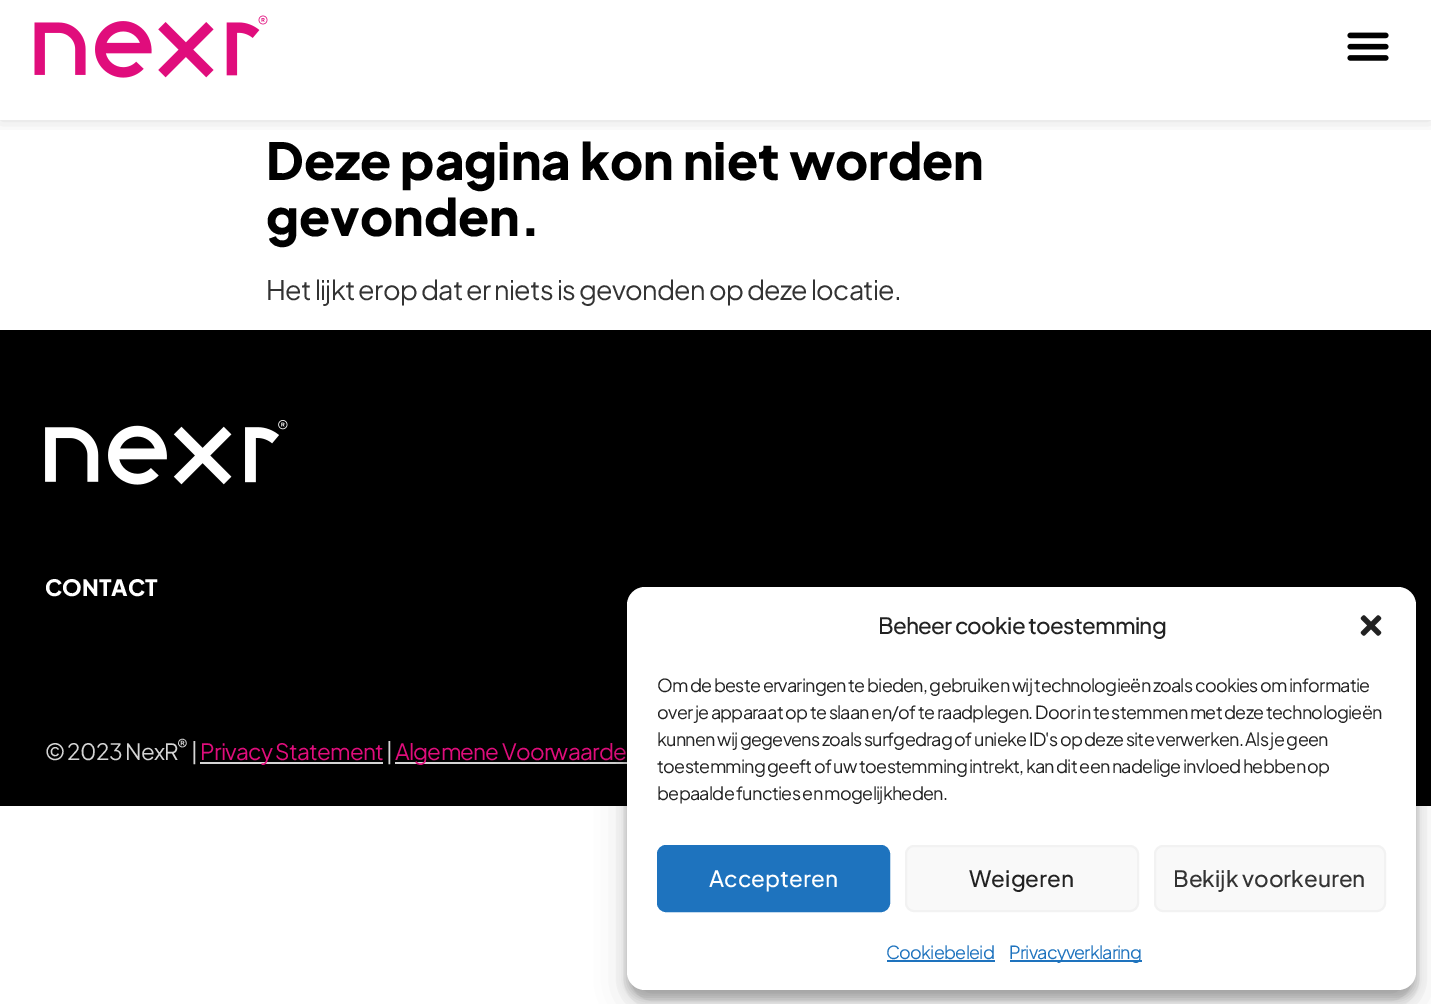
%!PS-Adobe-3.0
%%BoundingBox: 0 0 1431 1004
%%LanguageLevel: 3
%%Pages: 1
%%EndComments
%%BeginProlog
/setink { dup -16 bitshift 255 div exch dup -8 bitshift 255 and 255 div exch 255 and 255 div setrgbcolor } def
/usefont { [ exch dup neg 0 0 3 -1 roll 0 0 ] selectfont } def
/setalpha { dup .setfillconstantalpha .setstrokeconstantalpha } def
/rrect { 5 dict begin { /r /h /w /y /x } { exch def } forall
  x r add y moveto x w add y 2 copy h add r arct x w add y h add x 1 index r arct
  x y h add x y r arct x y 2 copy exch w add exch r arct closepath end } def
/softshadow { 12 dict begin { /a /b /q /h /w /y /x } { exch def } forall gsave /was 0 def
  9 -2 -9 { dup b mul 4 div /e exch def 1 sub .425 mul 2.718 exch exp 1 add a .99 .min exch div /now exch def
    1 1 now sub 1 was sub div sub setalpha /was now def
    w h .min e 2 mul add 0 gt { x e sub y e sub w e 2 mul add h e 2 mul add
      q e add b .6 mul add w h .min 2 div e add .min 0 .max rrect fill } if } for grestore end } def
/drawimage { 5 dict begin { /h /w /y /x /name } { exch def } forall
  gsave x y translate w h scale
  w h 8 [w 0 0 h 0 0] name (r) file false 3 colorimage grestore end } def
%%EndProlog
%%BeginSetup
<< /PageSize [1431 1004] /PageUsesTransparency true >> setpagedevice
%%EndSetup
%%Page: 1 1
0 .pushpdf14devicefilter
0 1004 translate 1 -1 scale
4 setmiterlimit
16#FFFFFF setink
0 0 1431 1004 rectfill
gsave
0 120 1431 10 rectclip
16#000000 setink
0 0 1431 120 0 9 0.15 softshadow
grestore
(img1.raw) 34 15 234 63 drawimage
(img2.raw) 1347 32 42 29 drawimage
/PlusJakartaSans-ExtraBold 51 usefont
16#000000 setink
266 180 moveto (Deze pagina kon niet worden) show
266 236 moveto (gevonden.) show
/PlusJakartaSans-Regular 27 usefont
16#333333 setink
266 300 moveto -0.75 0 (Het lijkt erop dat er niets is gevonden op deze locatie.) ashow
16#000000 setink
0 330 1431 476 rectfill
(img3.raw) 45 420 243 65 drawimage
/PlusJakartaSans-ExtraBold 22.5 usefont
16#FFFFFF setink
45 596 moveto (CONTACT) show
/PlusJakartaSans-Regular 22.5 usefont
16#D5D5D5 setink
45 760 moveto -0.75 0 (© 2023 NexR) ashow
/PlusJakartaSans-Regular 17 usefont
177 752 moveto -0.75 0 (®) ashow
/PlusJakartaSans-Regular 22.5 usefont
191 760 moveto -0.75 0 (|) ashow
200 762 183 2 rectfill
16#E00D7C setink
200 760 moveto -0.75 0 (Privacy Statement) ashow
16#D5D5D5 setink
386 760 moveto -0.75 0 (|) ashow
395 762 232 2 rectfill
16#E00D7C setink
395 760 moveto -0.75 0 (Algemene Voorwaarde) ashow
16#000000 setink
627 596 789 403 18 4.5 0.23 softshadow
627 602 789 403 18 15 0.19 softshadow
16#FFFFFF setink
627 587 789 403 18 rrect fill
/PlusJakartaSans-Medium 22.5 usefont
16#222222 setink
878 634 moveto -0.75 0 (Beheer cookie toestemming) ashow
(img4.raw) 1360 615 22 21 drawimage
/PlusJakartaSans-Regular 18 usefont
657 692 moveto -0.75 0 (Om de beste ervaringen te bieden, gebruiken wij technologieën zoals cookies om informatie) ashow
657 719 moveto -0.75 0 (over je apparaat op te slaan en/of te raadplegen. Door in te stemmen met deze technologieën) ashow
657 746 moveto -0.75 0 (kunnen wij gegevens zoals surfgedrag of unieke ID's op deze site verwerken. Als je geen) ashow
657 773 moveto -0.75 0 (toestemming geeft of uw toestemming intrekt, kan dit een nadelige invloed hebben op) ashow
657 800 moveto -0.75 0 (bepaalde functies en mogelijkheden.) ashow
16#1E73BE setink
658 846 231 65 8 rrect gsave fill grestore
2 setlinewidth
stroke
/PlusJakartaSans-Medium 22.5 usefont
16#FFFFFF setink
709 887 moveto (Accepteren) show
16#F9F9F9 setink
906 846 232 65 8 rrect gsave fill grestore
16#F2F2F2 setink
stroke
16#222222 setink
969 887 moveto (Weigeren) show
16#F9F9F9 setink
1155 846 230 65 8 rrect gsave fill grestore
16#F2F2F2 setink
stroke
16#333333 setink
1173 887 moveto (Bekijk voorkeuren) show
/PlusJakartaSans-Regular 18 usefont
16#1E73BE setink
886 959 moveto -0.75 0 (Cookiebeleid) ashow
887 960 108 2 rectfill
1010 960 132 2 rectfill
1009 959 moveto -0.75 0 (Privacyverklaring) ashow
.poppdf14devicefilter showpage
%%EOF
